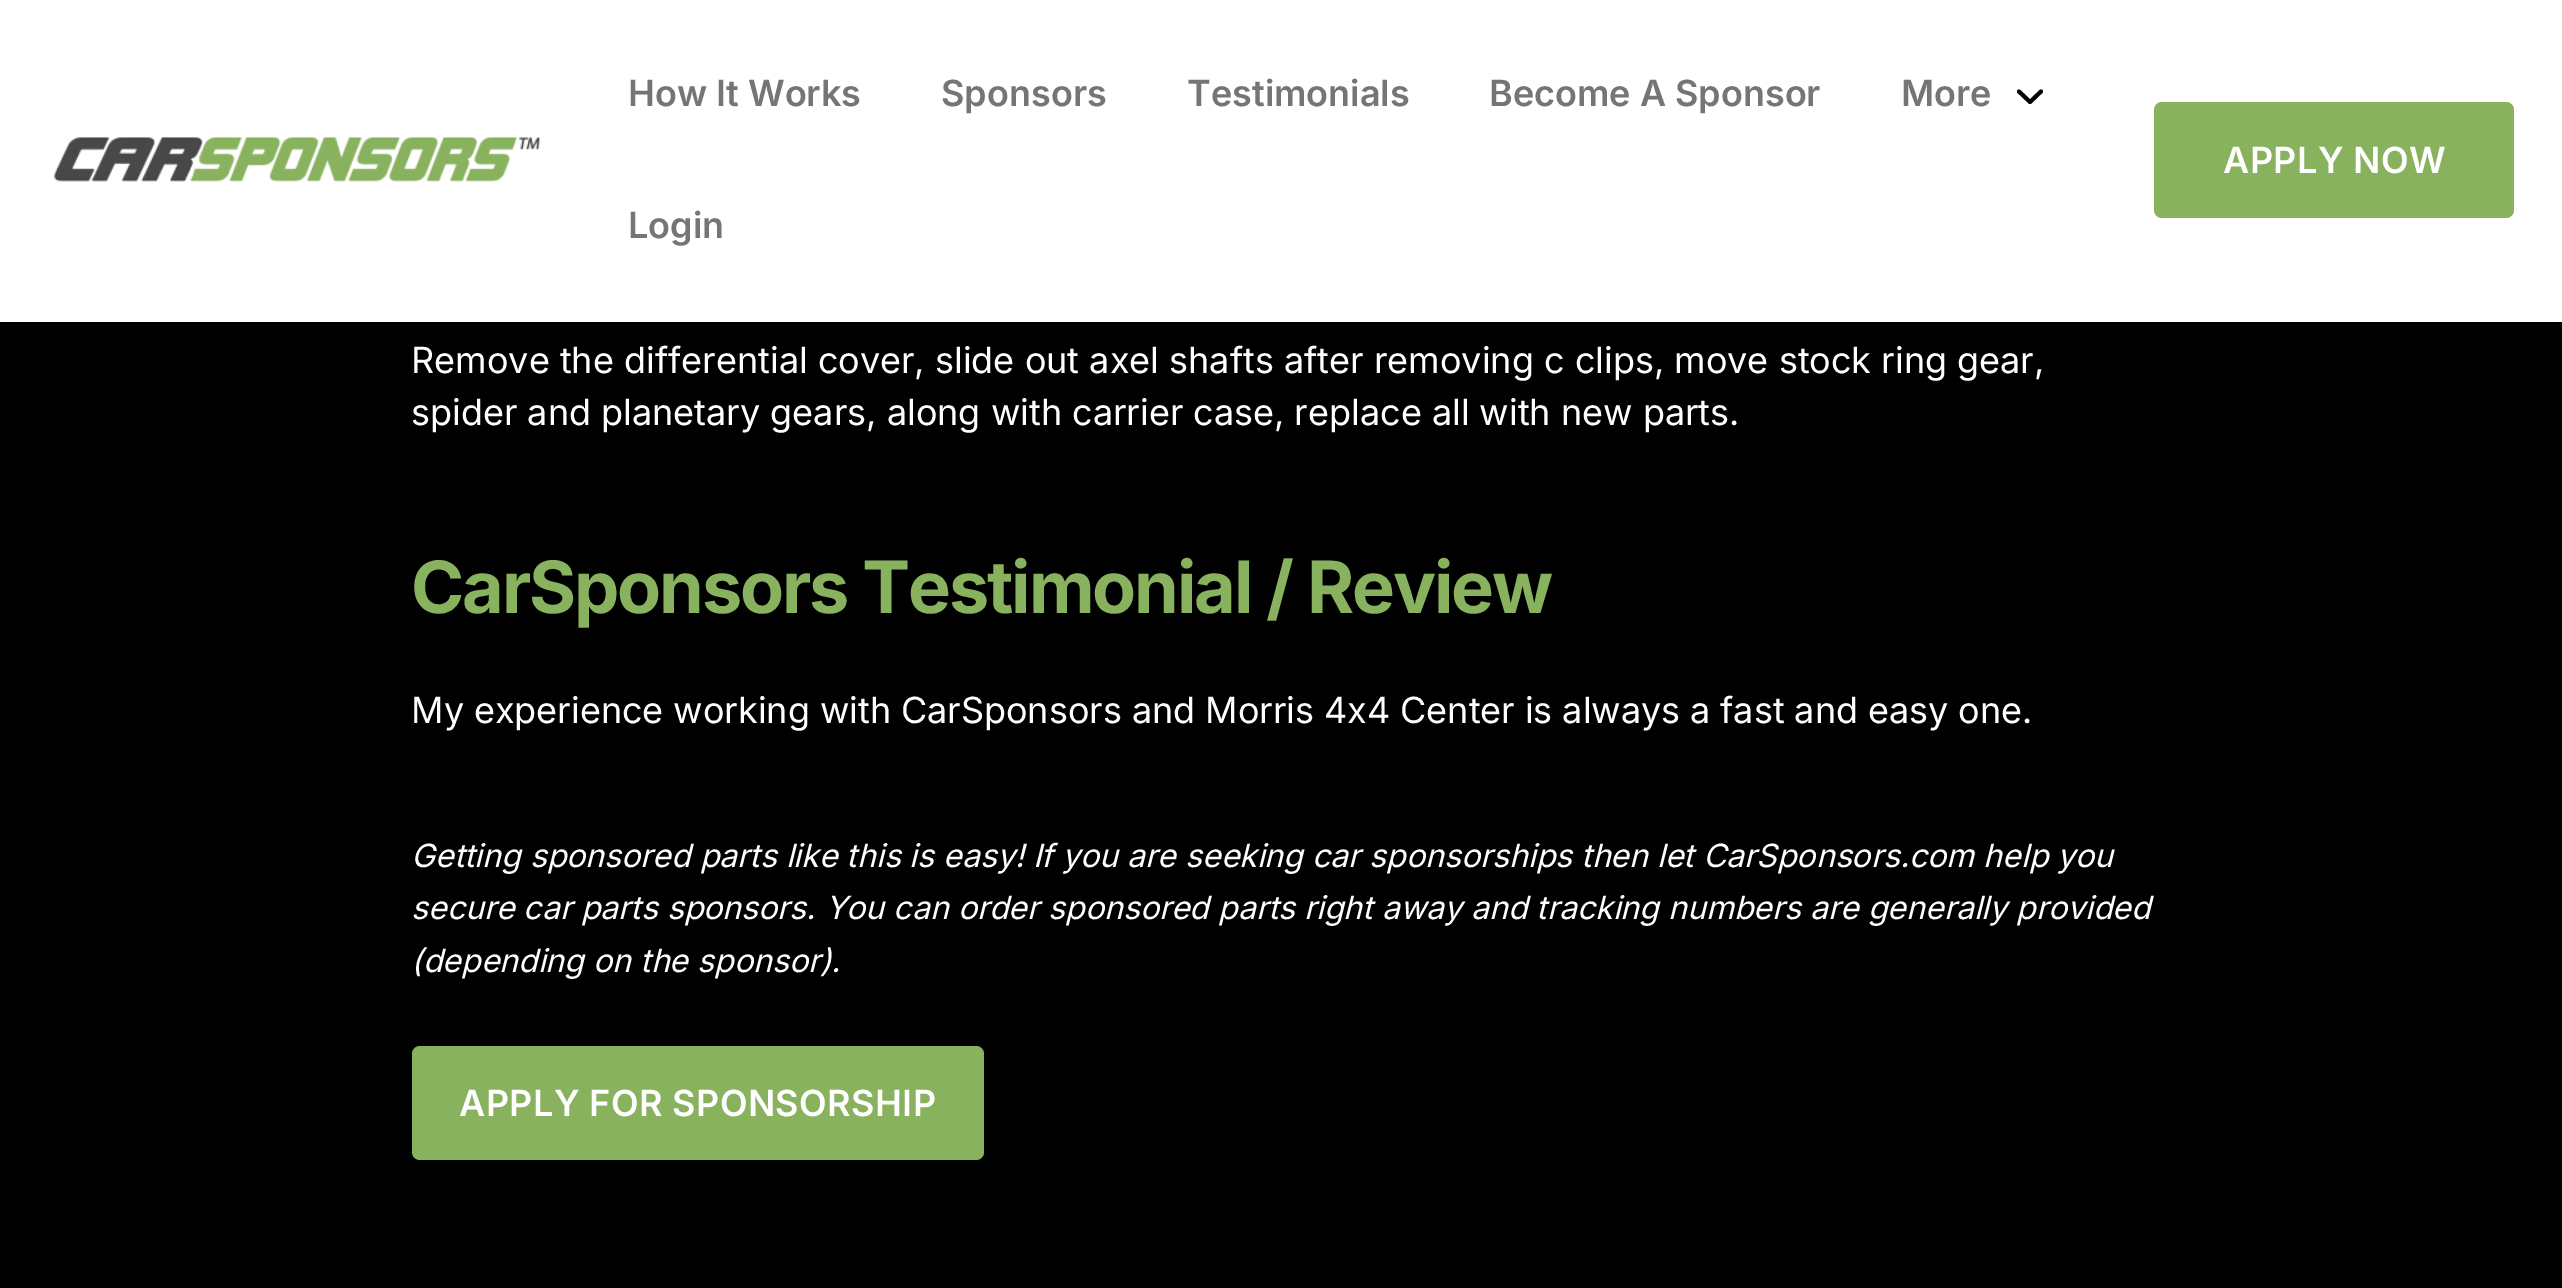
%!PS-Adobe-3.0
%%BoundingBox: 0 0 2562 1288
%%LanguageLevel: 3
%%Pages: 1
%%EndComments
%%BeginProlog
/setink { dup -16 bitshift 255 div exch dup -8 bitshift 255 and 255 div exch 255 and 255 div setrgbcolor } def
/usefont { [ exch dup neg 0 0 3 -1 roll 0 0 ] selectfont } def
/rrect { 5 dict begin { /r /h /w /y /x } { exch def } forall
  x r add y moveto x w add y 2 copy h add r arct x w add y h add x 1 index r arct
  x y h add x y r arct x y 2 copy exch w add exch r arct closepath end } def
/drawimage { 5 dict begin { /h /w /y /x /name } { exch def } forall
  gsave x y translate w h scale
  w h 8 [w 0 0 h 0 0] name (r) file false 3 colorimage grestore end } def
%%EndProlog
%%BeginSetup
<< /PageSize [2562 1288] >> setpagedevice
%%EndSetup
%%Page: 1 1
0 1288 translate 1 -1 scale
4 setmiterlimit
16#000000 setink
0 0 2562 1288 rectfill
16#FFFFFF setink
0 0 2562 322 rectfill
(img1.raw) 54 136 487 46 drawimage
/Inter-SemiBold 36 usefont
16#757575 setink
[
    [(How It Works) 628 106]
    [(Sponsors) 941 106]
    [(Testimonials) 1187 106]
    [(Become A Sponsor) 1489 106]
    [(More) 1901 106]
] { aload pop moveto show } forall
16#000000 setink
4 setlinewidth
1 setlinecap
1 setlinejoin
2019 91.5 moveto 2030 102 lineto 2041 91.5 lineto stroke
16#757575 setink
628 238 moveto (Login) show
16#89B25F setink
2154 102 360 116 8 rrect fill
16#FFFFFF setink
2223 173 moveto 0.4 0 (APPLY NOW) ashow
/Inter-Regular 36 usefont
411 373 moveto (Remove the differential cover, slide out axel shafts after removing c clips, move stock ring gear,) show
411 425 moveto (spider and planetary gears, along with carrier case, replace all with new parts.) show
/Inter-Bold 72 usefont
16#89B25F setink
411 613 moveto -2.15 0 (CarSponsors Testimonial / Review) ashow
/Inter-Regular 36 usefont
16#FFFFFF setink
411 723 moveto -0.25 0 32 (My experience working with CarSponsors and Morris 4x4 Center is always a fast and easy one.) widthshow
/Inter-Italic 32 usefont
[
    [(Getting sponsored parts like this is easy! If you are seeking car sponsorships then let CarSponsors.com help you) 411 867]
    [(secure car parts sponsors. You can order sponsored parts right away and tracking numbers are generally provided) 411 919]
    [(\(depending on the sponsor\).) 411 972]
] { aload pop moveto show } forall
16#89B25F setink
412 1046 572 114 8 rrect fill
/Inter-SemiBold 36 usefont
16#FFFFFF setink
459 1116 moveto 0.4 0 (APPLY FOR SPONSORSHIP) ashow
showpage
%%EOF
